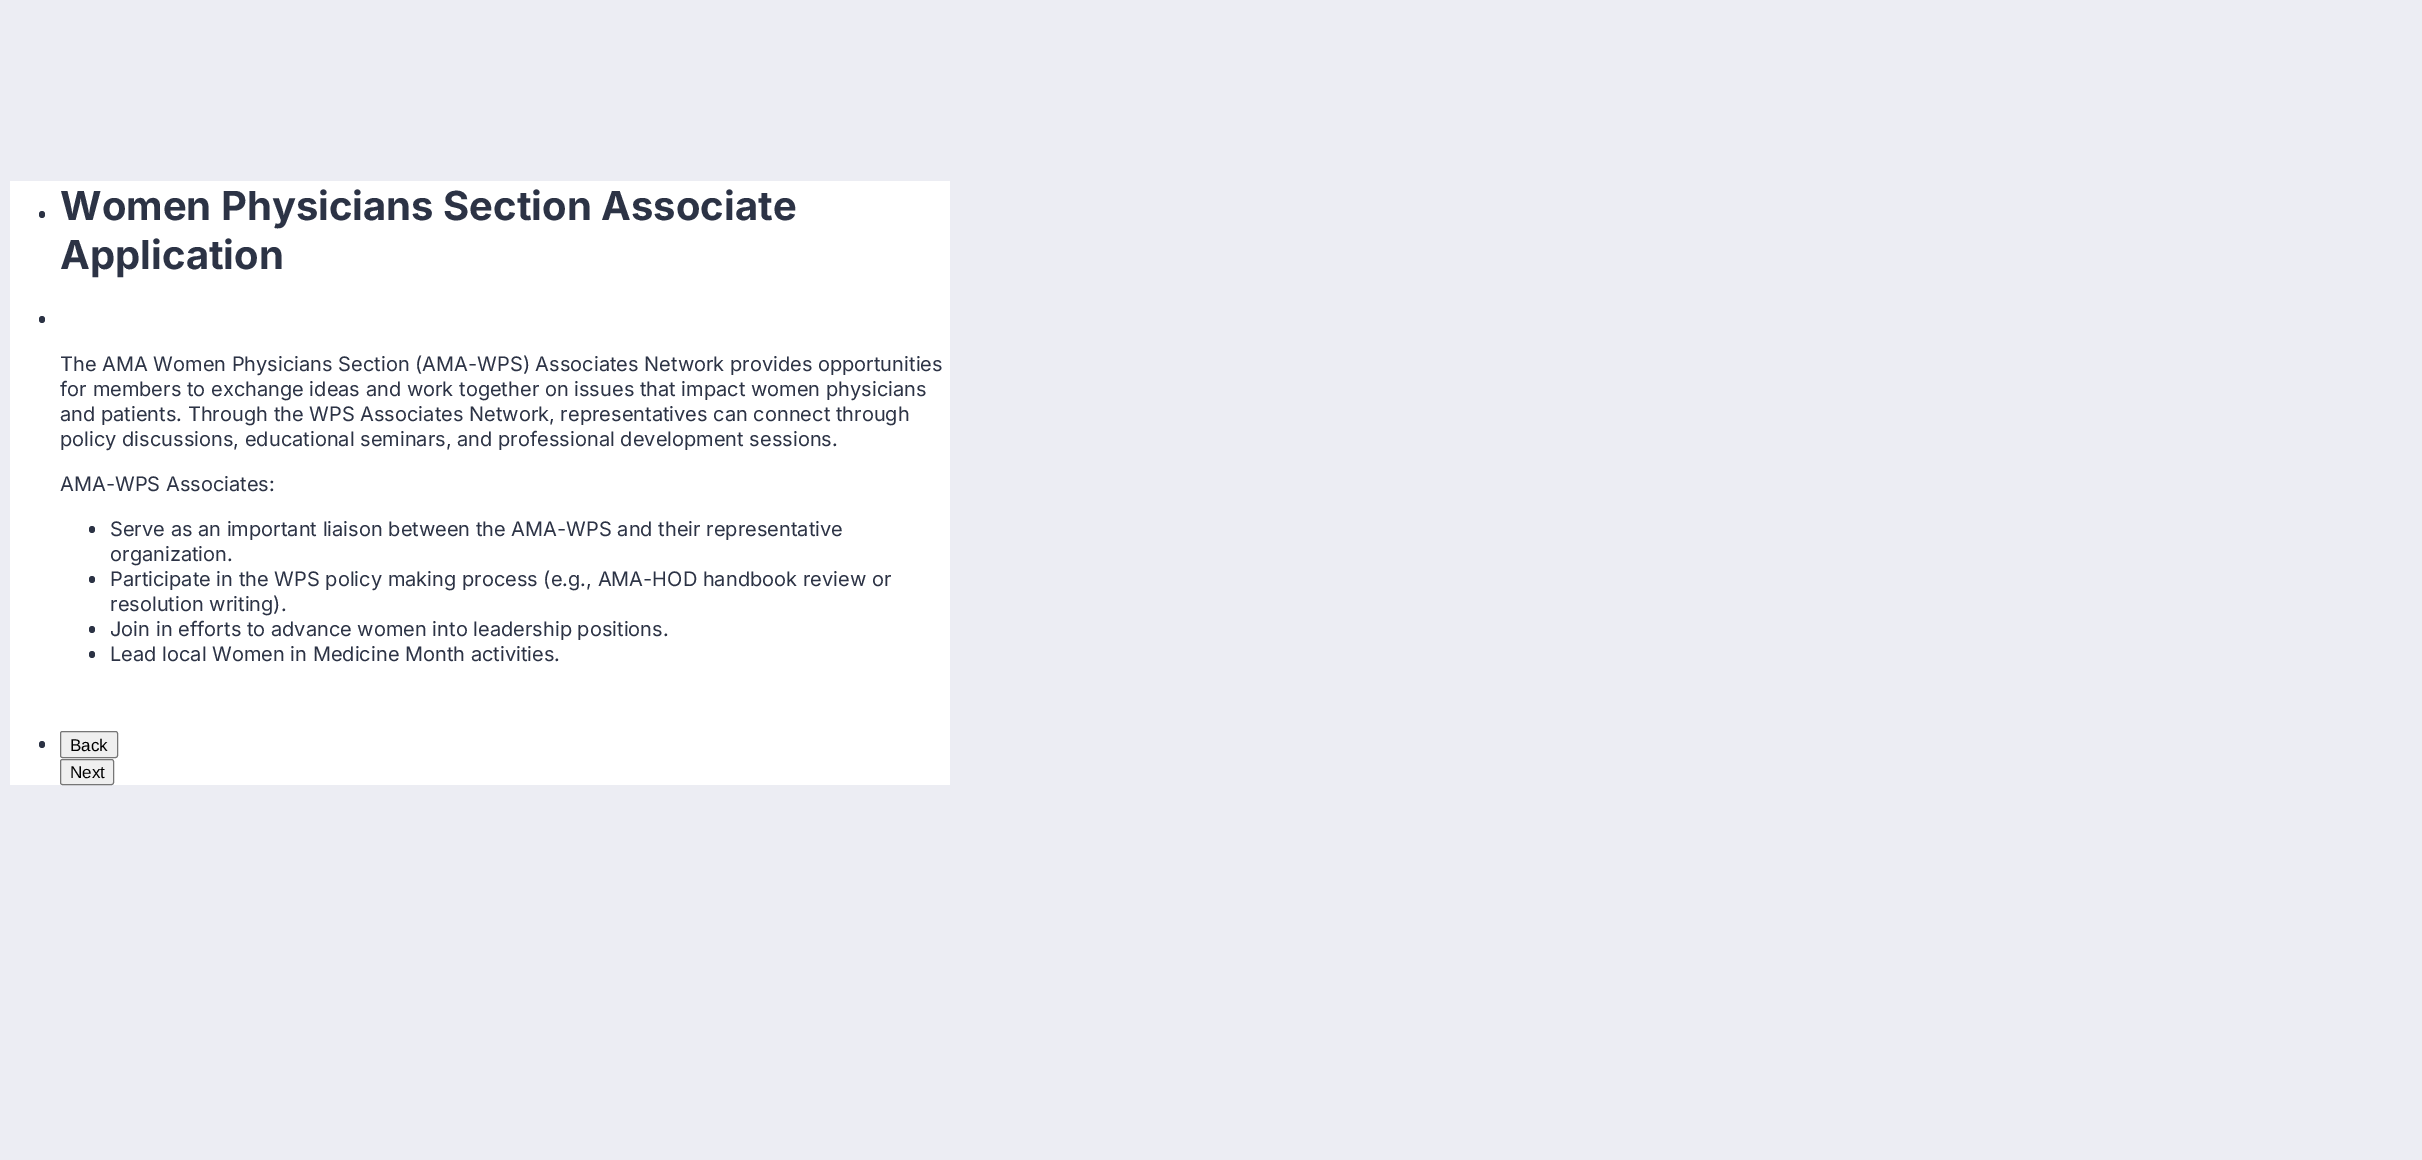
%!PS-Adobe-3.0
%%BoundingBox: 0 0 2422 1160
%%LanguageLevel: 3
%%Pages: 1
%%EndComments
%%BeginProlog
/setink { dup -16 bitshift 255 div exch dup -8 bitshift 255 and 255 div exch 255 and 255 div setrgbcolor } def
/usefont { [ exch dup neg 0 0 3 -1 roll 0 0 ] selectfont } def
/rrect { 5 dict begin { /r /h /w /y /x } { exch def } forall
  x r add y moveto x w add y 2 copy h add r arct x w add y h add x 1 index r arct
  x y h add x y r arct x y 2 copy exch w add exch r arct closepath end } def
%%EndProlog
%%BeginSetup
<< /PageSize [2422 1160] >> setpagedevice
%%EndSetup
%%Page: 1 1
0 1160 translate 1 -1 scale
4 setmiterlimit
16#ECEDF3 setink
0 0 2422 1160 rectfill
16#FFFFFF setink
10 181 940 604 rectfill
16#2C3345 setink
39 211 6 7 3 rrect fill
/Inter-Bold 40 usefont
60 220 moveto (Women Physicians Section Associate) show
60 269 moveto (Application) show
39 316 6 7 3 rrect fill
/Inter-Regular 20 usefont
[
    [(The AMA Women Physicians Section \(AMA-WPS\) Associates Network provides opportunities) 60 371]
    [(for members to exchange ideas and work together on issues that impact women physicians) 60 396]
    [(and patients. Through the WPS Associates Network, representatives can connect through) 60 421]
    [(policy discussions, educational seminars, and professional development sessions.) 60 446]
    [(AMA-WPS Associates:) 60 491]
] { aload pop moveto show } forall
89 526 6 7 3 rrect fill
110 536 moveto (Serve as an important liaison between the AMA-WPS and their representative) show
110 561 moveto (organization.) show
89 576 6 7 3 rrect fill
110 586 moveto (Participate in the WPS policy making process \(e.g., AMA-HOD handbook review or) show
110 611 moveto (resolution writing\).) show
89 626 6 7 3 rrect fill
110 636 moveto (Join in efforts to advance women into leadership positions.) show
89 651 6 7 3 rrect fill
110 661 moveto (Lead local Women in Medicine Month activities.) show
39 741 6 7 3 rrect fill
16#EFEFEF setink
60.5 731.5 57 26 2 rrect gsave fill grestore
16#767676 setink
stroke
/LiberationSans-Regular 17 usefont
16#000000 setink
70 751 moveto (Back) show
16#EFEFEF setink
60.5 759.5 53 25 2 rrect gsave fill grestore
16#767676 setink
stroke
16#000000 setink
70 778 moveto (Next) show
showpage
%%EOF
